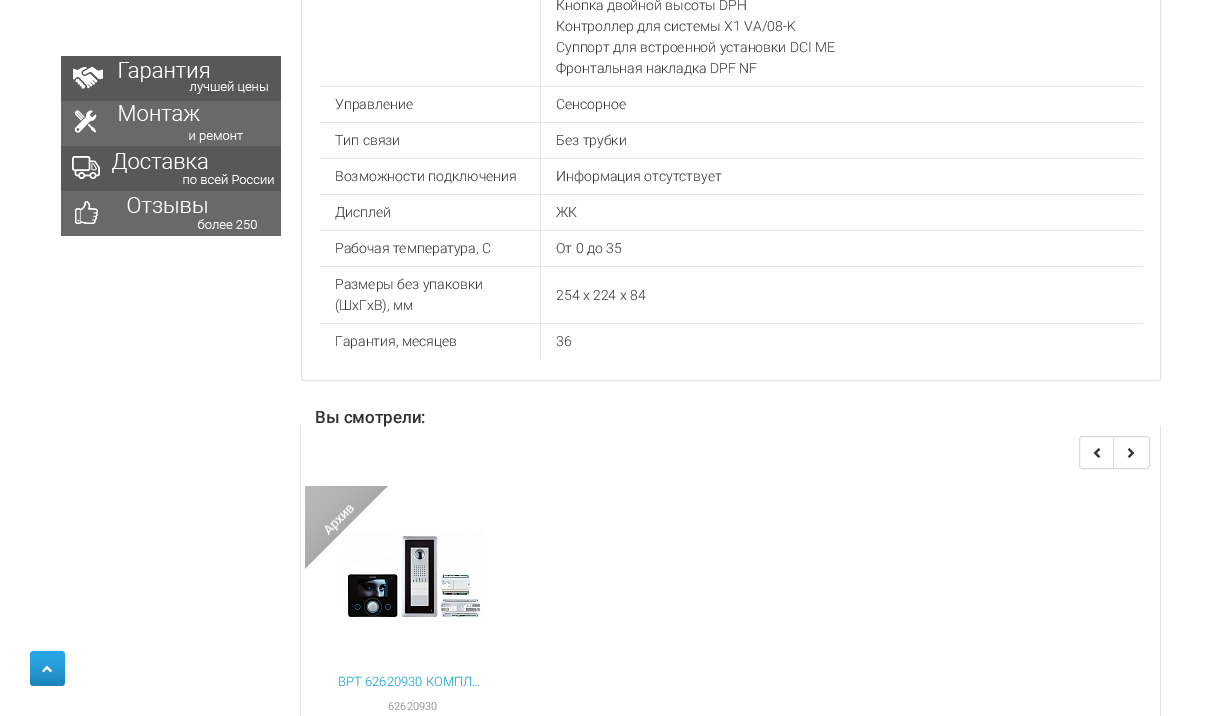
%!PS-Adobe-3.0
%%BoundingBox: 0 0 1222 716
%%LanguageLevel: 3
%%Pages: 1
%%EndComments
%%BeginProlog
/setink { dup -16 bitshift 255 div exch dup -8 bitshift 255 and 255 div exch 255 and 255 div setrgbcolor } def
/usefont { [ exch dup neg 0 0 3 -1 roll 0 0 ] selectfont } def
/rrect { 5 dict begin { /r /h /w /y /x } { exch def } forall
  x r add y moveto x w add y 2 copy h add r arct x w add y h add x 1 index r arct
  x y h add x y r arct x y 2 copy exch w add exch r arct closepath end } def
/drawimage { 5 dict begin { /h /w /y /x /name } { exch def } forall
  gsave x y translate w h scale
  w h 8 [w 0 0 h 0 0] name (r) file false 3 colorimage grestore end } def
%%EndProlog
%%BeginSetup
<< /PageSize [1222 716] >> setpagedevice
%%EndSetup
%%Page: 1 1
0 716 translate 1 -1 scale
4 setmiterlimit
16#FFFFFF setink
0 0 1222 716 rectfill
16#1FA3E7 setink
30 651 35 35 3 rrect fill
(img1.raw) 30 651 35 35 drawimage
(img2.raw) 61 56 220 45 drawimage
(img3.raw) 61 101 220 45 drawimage
(img4.raw) 61 146 220 45 drawimage
(img5.raw) 61 191 220 45 drawimage
16#E5E5E5 setink
301.5 -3.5 859 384 2.5 rrect stroke
[
    [540 323 1 37 16#E5E5E5]
    [540 323 603 1 16#E5E5E5]
    [540 266 1 58 16#E5E5E5]
    [540 266 603 1 16#E5E5E5]
    [540 230 1 37 16#E5E5E5]
    [540 230 603 1 16#E5E5E5]
    [540 194 1 37 16#E5E5E5]
    [540 194 603 1 16#E5E5E5]
    [540 158 1 37 16#E5E5E5]
    [540 158 603 1 16#E5E5E5]
    [540 122 1 37 16#E5E5E5]
    [540 122 603 1 16#E5E5E5]
    [540 86 1 37 16#E5E5E5]
    [540 86 603 1 16#E5E5E5]
    [540 0 1 87 16#E5E5E5]
] { aload pop setink rectfill } forall
/Roboto-Light 14 usefont
16#333333 setink
[
    [(Кнопка двойной высоты DPH) 556 10]
    [(Контроллер для системы X1 VA/08-K) 556 31]
    [(Суппорт для встроенной установки DCI ME) 556 52]
    [(Фронтальная накладка DPF NF) 556 73]
] { aload pop moveto show } forall
16#E5E5E5 setink
320 86 221 1 rectfill
320 122 221 1 rectfill
16#333333 setink
335 109 moveto (Управление) show
556 109 moveto (Сенсорное) show
16#E5E5E5 setink
320 158 221 1 rectfill
16#333333 setink
335 145 moveto (Тип связи) show
556 145 moveto (Без трубки) show
16#E5E5E5 setink
320 194 221 1 rectfill
16#333333 setink
335 181 moveto (Возможности подключения) show
556 181 moveto (Информация отсутствует) show
16#E5E5E5 setink
320 230 221 1 rectfill
16#333333 setink
335 217 moveto (Дисплей) show
556 217 moveto (ЖК) show
16#E5E5E5 setink
320 266 221 1 rectfill
16#333333 setink
335 253 moveto (Рабочая температура, С) show
556 253 moveto (От 0 до 35) show
16#E5E5E5 setink
320 323 221 1 rectfill
16#333333 setink
[
    [(Размеры без упаковки) 335 289]
    [(\(ШхГхВ\), мм) 335 310]
    [(254 х 224 х 84) 556 300]
    [(Гарантия, месяцев) 335 346]
    [(36) 556 346]
] { aload pop moveto show } forall
/Roboto-Medium 17 usefont
315 423 moveto (Вы смотрели:) show
16#E5E5E5 setink
1160 426 1 290 rectfill
300 426 1 290 rectfill
16#DBDBDB setink
1079.5 436.5 70 32 2.5 rrect stroke
(img6.raw) 1093 448 8 10 drawimage
1113 437 1 31 rectfill
(img7.raw) 1127 448 8 10 drawimage
(img9.raw) 343 529 140 94 drawimage
(img8.raw) 305 486 83 83 drawimage
/Roboto-Light 13 usefont
16#009CD2 setink
338 686 moveto (BPT 62620930 КОМПЛ…) show
/Roboto-Regular 11 usefont
16#999999 setink
388 710 moveto (62620930) show
showpage
%%EOF
